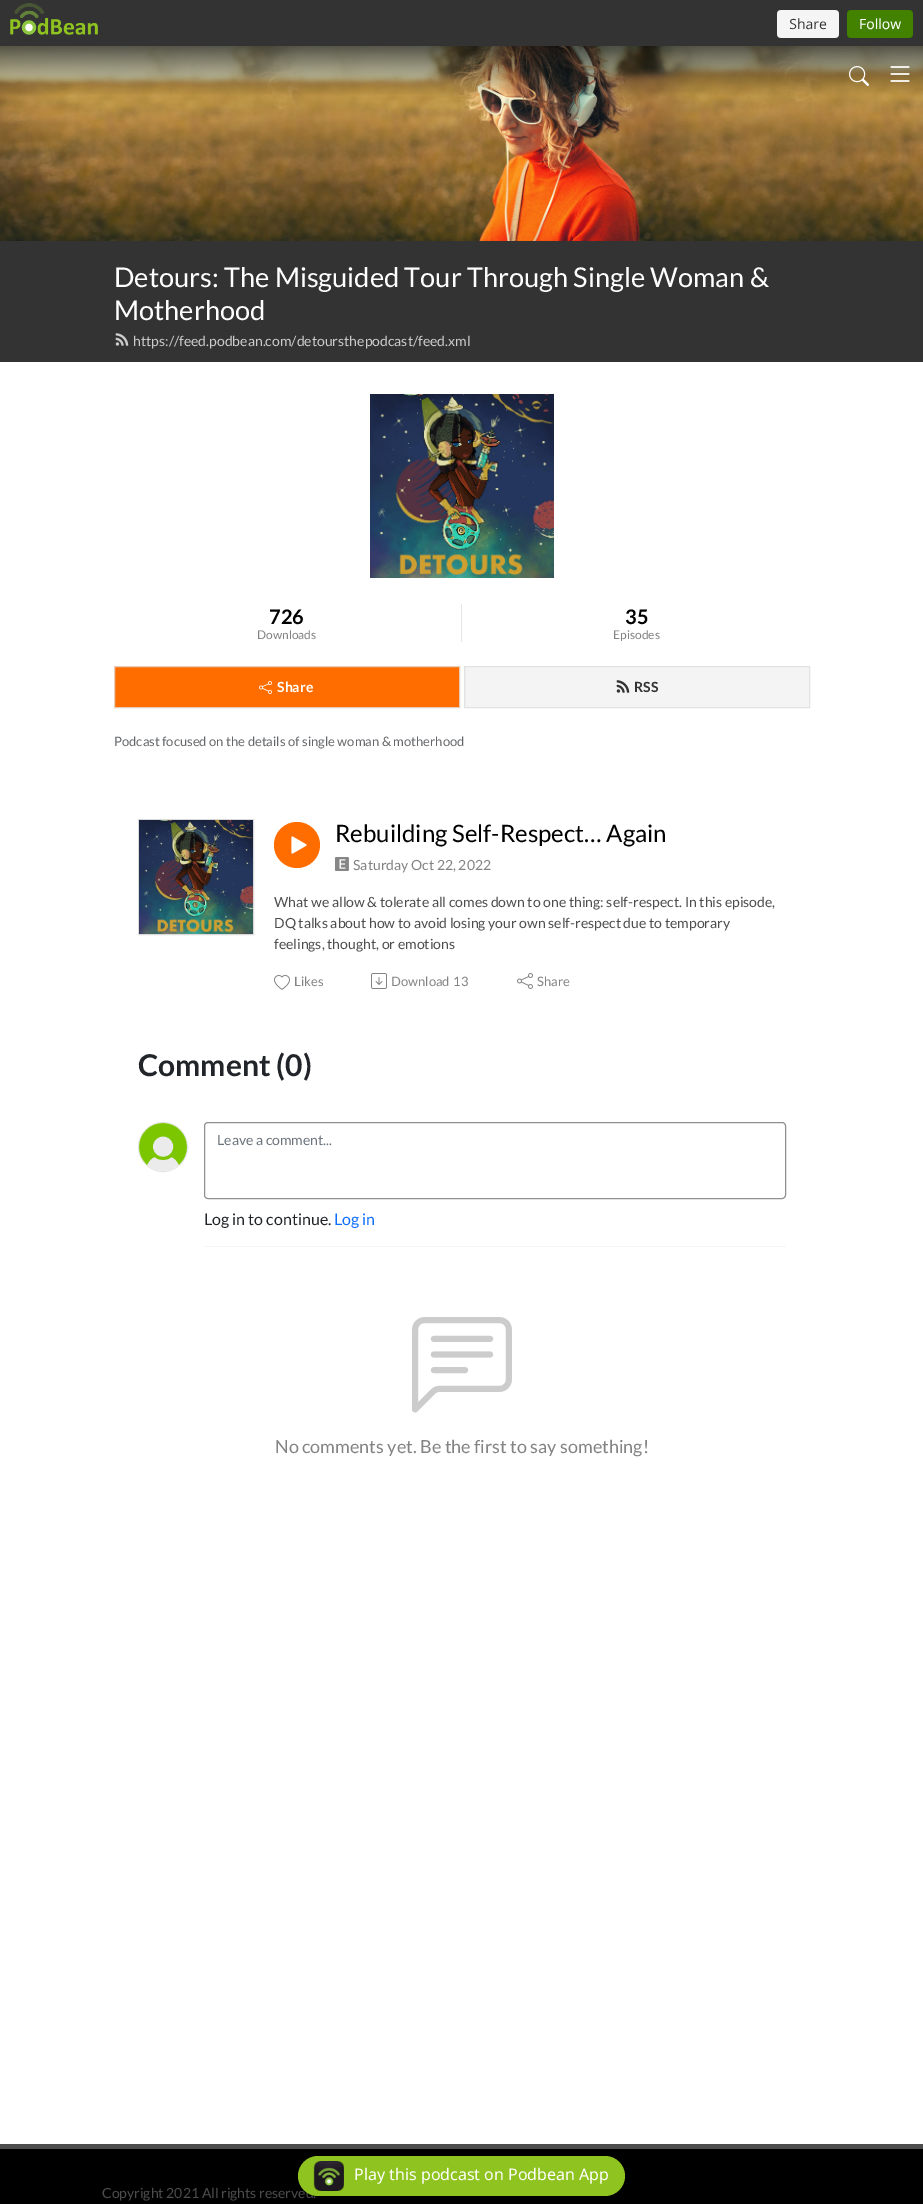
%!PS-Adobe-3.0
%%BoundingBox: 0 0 923 2204
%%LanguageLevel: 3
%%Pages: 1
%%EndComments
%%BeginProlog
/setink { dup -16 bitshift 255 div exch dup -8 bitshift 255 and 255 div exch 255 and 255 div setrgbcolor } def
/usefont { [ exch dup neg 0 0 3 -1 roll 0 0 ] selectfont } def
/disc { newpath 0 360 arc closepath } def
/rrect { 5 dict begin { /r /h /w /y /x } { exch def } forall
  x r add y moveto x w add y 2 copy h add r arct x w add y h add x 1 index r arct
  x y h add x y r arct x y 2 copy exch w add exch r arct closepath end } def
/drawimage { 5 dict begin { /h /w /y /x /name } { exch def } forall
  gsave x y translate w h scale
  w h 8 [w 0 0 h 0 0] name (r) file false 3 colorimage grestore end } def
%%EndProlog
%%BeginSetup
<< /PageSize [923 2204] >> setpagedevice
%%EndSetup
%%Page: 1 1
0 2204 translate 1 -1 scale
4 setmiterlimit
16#FFFFFF setink
0 0 923 2204 rectfill
16#4D4D4D setink
0 2144 923 5 rectfill
16#333333 setink
0 0 923 46 rectfill
(img1.raw) 10 3 903 35 drawimage
(img4.raw) 0 46 923 195 drawimage
(img2.raw) 849 66 20 20 drawimage
(img3.raw) 890 66 20 16 drawimage
0 241 923 121 rectfill
/Lato-Regular 27.2 usefont
16#FFFFFF setink
114 287 moveto (Detours: The Misguided Tour Through Single Woman &) show
114 320 moveto (Motherhood) show
(img5.raw) 115 333 14 13 drawimage
/Lato-Regular 14 usefont
16#CCCCCC setink
133 346 moveto (https://feed.podbean.com/detoursthepodcast/feed.xml) show
(img6.raw) 370 394 184 184 drawimage
/Lato-Bold 20 usefont
16#000000 setink
269 624 moveto (726) show
/Lato-Regular 12 usefont
16#838383 setink
257 639 moveto (Downloads) show
16#E6E6E6 setink
461 604 1 38 rectfill
/Lato-Bold 20 usefont
16#000000 setink
625 624 moveto (35) show
/Lato-Regular 12 usefont
16#838383 setink
613 639 moveto (Episodes) show
16#FF6D00 setink
114.5 666.5 moveto 459.5 666.5 lineto 459.5 707.5 lineto 114.5 707.5 lineto closepath gsave fill grestore
16#E8CBB5 setink
stroke
(img7.raw) 259 681 13 13 drawimage
/Lato-Bold 14 usefont
16#FFFFFF setink
277 692 moveto (Share) show
16#F4F4F4 setink
464.5 666.5 moveto 809.5 666.5 lineto 809.5 707.5 lineto 464.5 707.5 lineto closepath gsave fill grestore
16#E2E2E2 setink
stroke
(img8.raw) 616 680 14 13 drawimage
16#333333 setink
634 692 moveto (RSS) show
/Lato-Regular 13 usefont
16#646669 setink
114 746 moveto (Podcast focused on the details of single woman & motherhood) show
16#DADADA setink
138.5 819.5 115 115 rectstroke
(img9.raw) 139 820 114 114 drawimage
16#FF6D00 setink
297 845 23 disc fill
(img10.raw) 291 836 16 18 drawimage
/Lato-Regular 24 usefont
16#000000 setink
335 842 moveto (Rebuilding Self-Respect… Again) show
(img11.raw) 335 857 14 14 drawimage
/Lato-Regular 14 usefont
16#838383 setink
353 870 moveto (Saturday Oct 22, 2022) show
16#4D4D4D setink
[
    [(What we allow & tolerate all comes down to one thing: self-respect. In this episode,) 274 907]
    [(DQ talks about how to avoid losing your own self-respect due to temporary) 274 928]
    [(feelings, thought, or emotions) 274 949]
] { aload pop moveto show } forall
(img12.raw) 274 975 16 15 drawimage
/Lato-Regular 13 usefont
16#838383 setink
294 986 moveto (Likes) show
(img13.raw) 371 973 16 16 drawimage
391 986 moveto (Download) show
453 986 moveto (13) show
(img14.raw) 517 973 16 16 drawimage
537 986 moveto (Share) show
/Lato-Bold 30 usefont
16#212529 setink
138 1076 moveto (Comment \(0\)) show
16#E3E3E3 setink
163 1147 24.5 disc stroke
(img15.raw) 139 1123 48 48 drawimage
16#F5F5F5 setink
204 1246 582 1 rectfill
16#909090 setink
204.5 1122.5 581 76 3.5 rrect stroke
/Lato-Regular 14 usefont
16#6C757D setink
217 1145 moveto (Leave a comment...) show
/Lato-Regular 16 usefont
16#212529 setink
204 1225 moveto (Log in to continue.) show
16#0D6EFD setink
334 1225 moveto (Log in) show
(img16.raw) 412 1317 100 96 drawimage
/Lato-Regular 18 usefont
16#838383 setink
275 1453 moveto (No comments yet. Be the first to say something!) show
16#000000 setink
0 2149 923 55 rectfill
/Lato-Regular 14 usefont
16#4D4D4D setink
102 2198 moveto (Copyright 2021 All rights reserved.) show
16#8FC31F setink
298 2156 327 40 20 rrect fill
(img17.raw) 313 2161 31 30 drawimage
/NotoSans-Regular 16 usefont
16#FFFFFF setink
354 2180 moveto (Play this podcast on Podbean App) show
showpage
%%EOF
